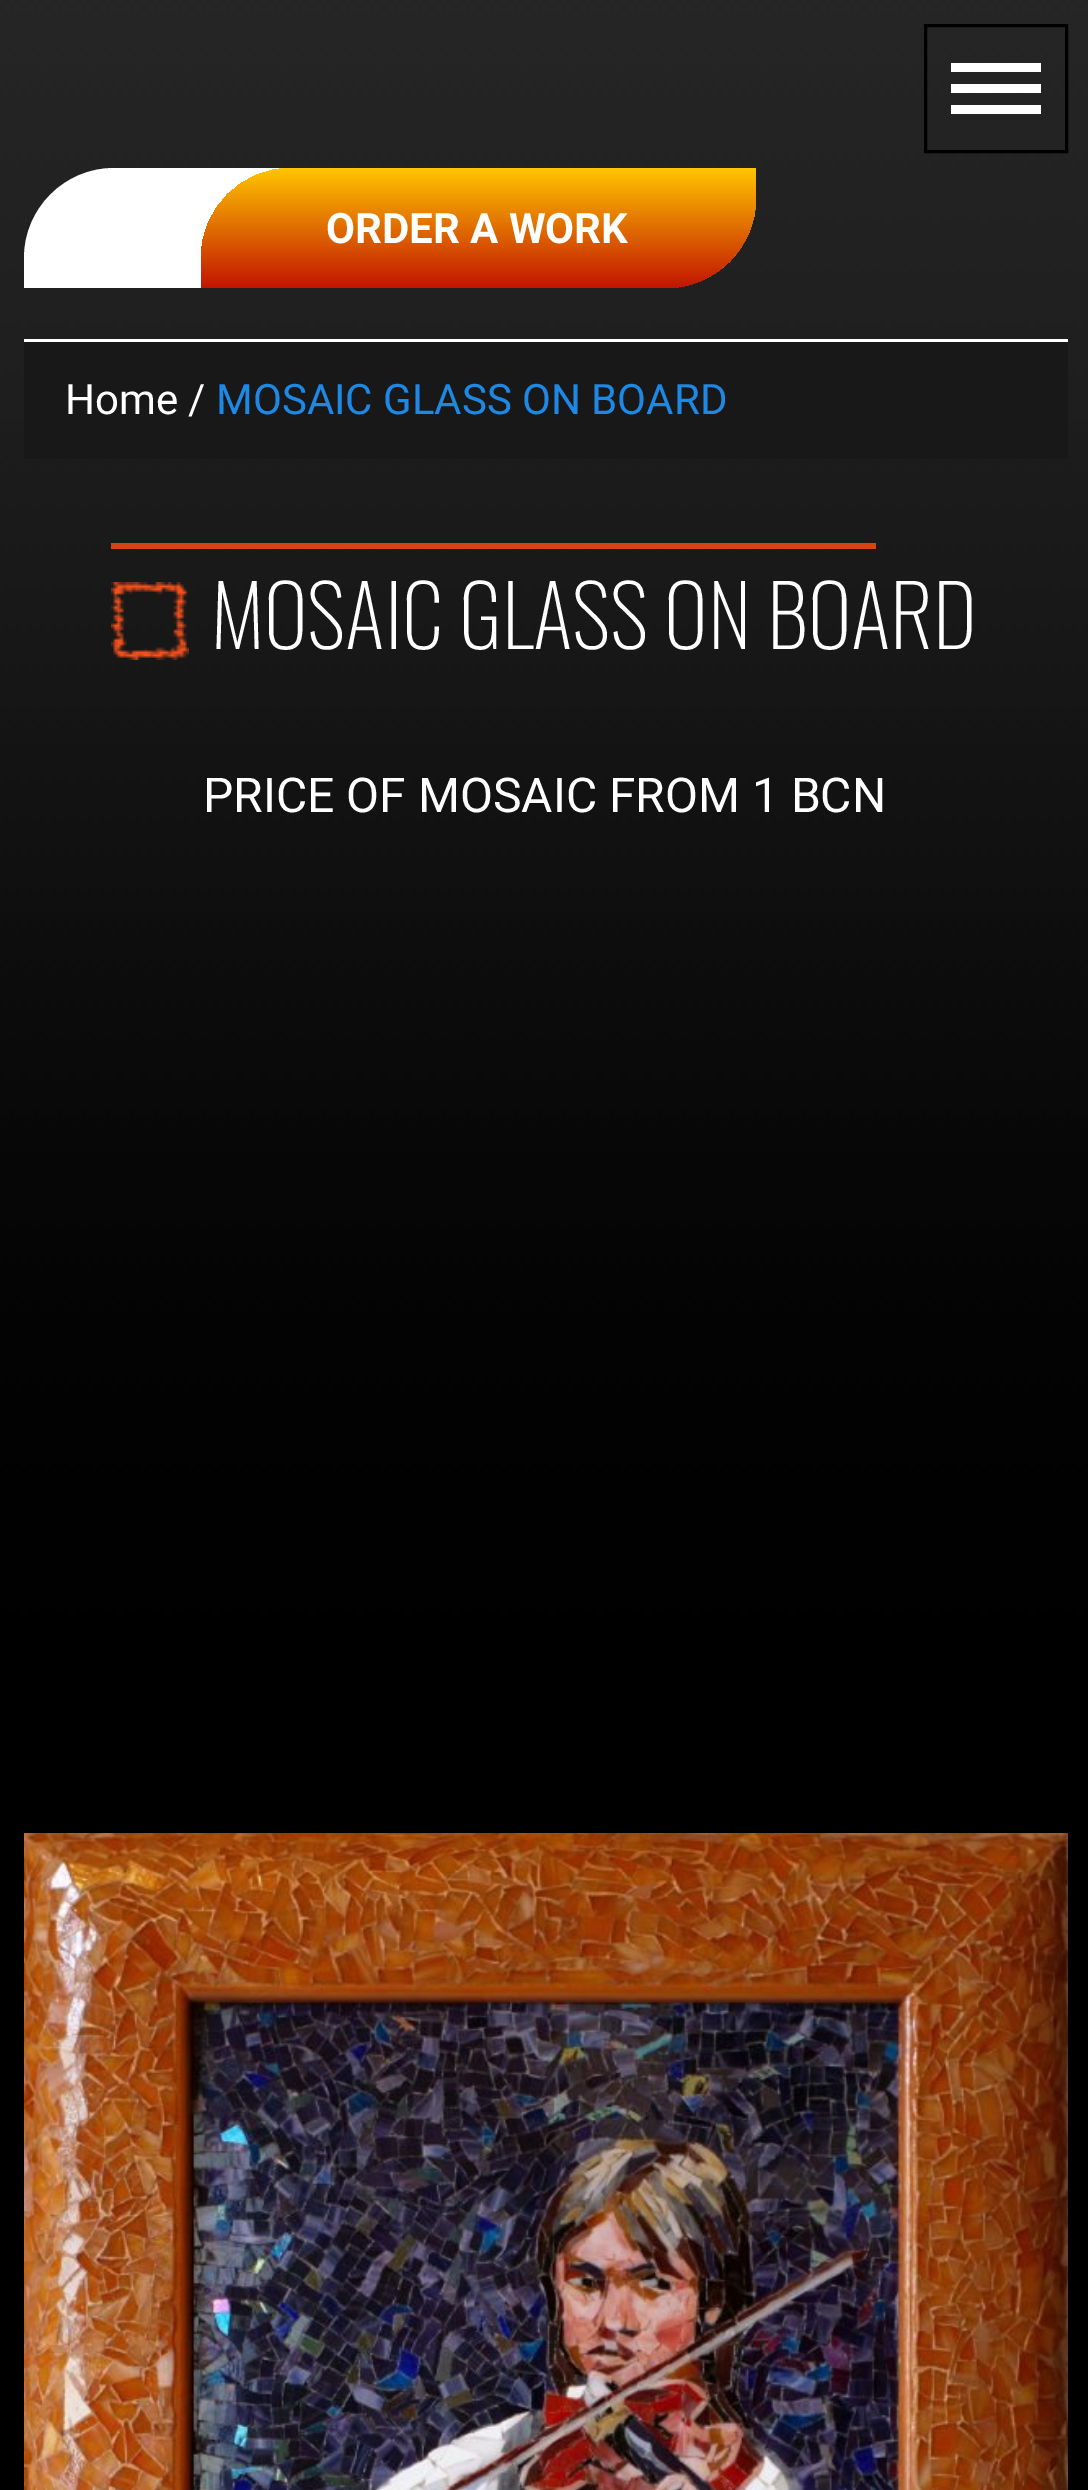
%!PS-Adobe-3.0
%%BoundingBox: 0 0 1088 2490
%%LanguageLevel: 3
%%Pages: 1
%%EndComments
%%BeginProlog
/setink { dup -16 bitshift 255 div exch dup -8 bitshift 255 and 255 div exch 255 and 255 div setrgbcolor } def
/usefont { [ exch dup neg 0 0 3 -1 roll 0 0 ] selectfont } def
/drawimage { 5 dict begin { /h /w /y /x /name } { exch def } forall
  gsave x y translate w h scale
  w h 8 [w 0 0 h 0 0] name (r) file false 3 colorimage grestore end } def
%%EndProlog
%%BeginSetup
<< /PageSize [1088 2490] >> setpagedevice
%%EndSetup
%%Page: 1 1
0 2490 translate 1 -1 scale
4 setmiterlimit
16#FFFFFF setink
0 0 1088 2490 rectfill
(img1.raw) 0 0 1088 2490 drawimage
16#000000 setink
3 setlinewidth
925.5 25.5 141 126 rectstroke
[
    [951 63 90 9 16#FFFFFF]
    [951 84 90 9 16#FFFFFF]
    [951 105 90 9 16#FFFFFF]
] { aload pop setink rectfill } forall
114 168 moveto 756 168 lineto 756 198 lineto 756 247.5 715.5 288 666 288 curveto 24 288 lineto 24 258 lineto 24 208.5 64.5 168 114 168 curveto closepath fill
gsave 291 168 moveto 756 168 lineto 756 198 lineto 756 247.5 715.5 288 666 288 curveto 201 288 lineto 201 258 lineto 201 208.5 241.5 168 291 168 curveto closepath clip newpath
<< /ShadingType 2 /ColorSpace /DeviceRGB /Coords [479 288 479 168] /Extend [true true] /Function << /FunctionType 2 /Domain [0 1] /C0 [0.761 0.082 0] /C1 [1 0.773 0] /N 1 >> >> shfill grestore
/Roboto-Bold 42 usefont
326 243 moveto (ORDER A WORK) show
16#181818 setink
24 342 1044 117 rectfill
16#FFFFFF setink
24 339 1044 3 rectfill
/Roboto-Regular 42 usefont
65 414 moveto (Home /) show
16#1E88E5 setink
216 414 moveto (MOSAIC GLASS ON BOARD) show
16#D84315 setink
111 543 765 6 rectfill
(img2.raw) 111 582 78 78 drawimage
/Oswald-ExtraLight 84 usefont
16#FFFFFF setink
211 649 moveto (MOSAIC GLASS ON BOARD) show
/Roboto-Regular 48 usefont
203 812 moveto (PRICE OF MOSAIC FROM 1 BCN) show
(img3.raw) 24 1833 1044 657 drawimage
showpage
%%EOF
